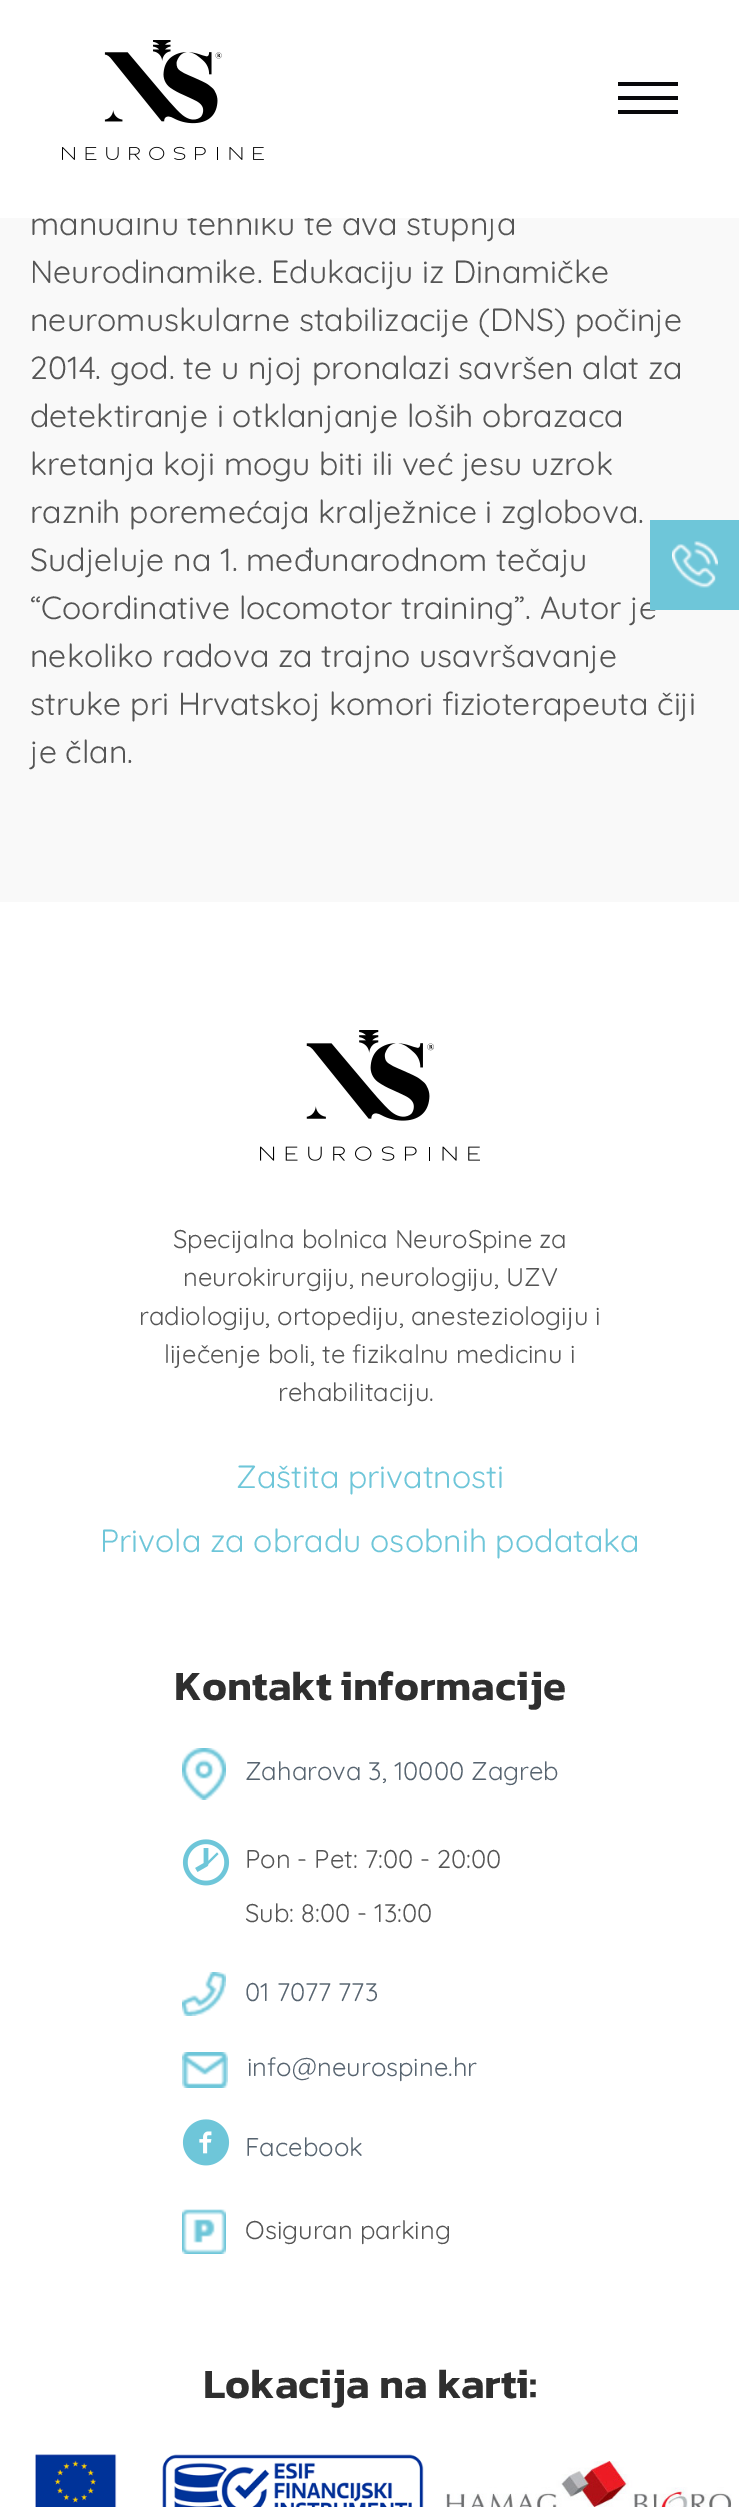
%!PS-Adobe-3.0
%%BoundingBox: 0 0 739 2507
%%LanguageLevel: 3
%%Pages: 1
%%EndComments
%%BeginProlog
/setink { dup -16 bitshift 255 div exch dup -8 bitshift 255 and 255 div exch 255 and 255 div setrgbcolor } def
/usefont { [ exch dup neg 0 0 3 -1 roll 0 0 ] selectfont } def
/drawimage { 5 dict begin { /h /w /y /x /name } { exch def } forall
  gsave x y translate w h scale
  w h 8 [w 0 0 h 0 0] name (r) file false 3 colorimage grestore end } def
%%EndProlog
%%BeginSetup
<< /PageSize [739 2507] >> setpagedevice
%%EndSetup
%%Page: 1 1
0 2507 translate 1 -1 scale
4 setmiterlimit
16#F9F9F9 setink
0 0 739 2507 rectfill
/Quicksand-Regular 32 usefont
16#555555 setink
30 235 moveto (manualnu tehniku te dva stupnja) show
16#FFFFFF setink
0 0 739 218 rectfill
(img1.raw) 62 40 202 120 drawimage
[
    [618 82 60 4 16#08080A]
    [618 96 60 4 16#08080A]
    [618 110 60 4 16#08080A]
] { aload pop setink rectfill } forall
16#555555 setink
[
    [(Neurodinamike. Edukaciju iz Dinamičke) 30 283]
    [(neuromuskularne stabilizacije \(DNS\) počinje) 30 331]
    [(2014. god. te u njoj pronalazi savršen alat za) 30 379]
    [(detektiranje i otklanjanje loših obrazaca) 30 427]
    [(kretanja koji mogu biti ili već jesu uzrok) 30 475]
    [(raznih poremećaja kralježnice i zglobova.) 30 523]
    [(Sudjeluje na 1. međunarodnom tečaju) 30 571]
    [(“Coordinative locomotor training”. Autor je) 30 619]
    [(nekoliko radova za trajno usavršavanje) 30 667]
    [(struke pri Hrvatskoj komori fizioterapeuta čiji) 30 715]
    [(je član.) 30 763]
] { aload pop moveto show } forall
16#6EC6D9 setink
650 520 89 90 rectfill
(img2.raw) 672 541 46 47 drawimage
16#FFFFFF setink
0 902 739 1605 rectfill
(img3.raw) 260 1030 220 131 drawimage
/Quicksand-Regular 25.6 usefont
16#555555 setink
[
    [(Specijalna bolnica NeuroSpine za) 173 1248]
    [(neurokirurgiju, neurologiju, UZV) 183 1286]
    [(radiologiju, ortopediju, anesteziologiju i) 139 1325]
    [(liječenje boli, te fizikalnu medicinu i) 164 1363]
    [(rehabilitaciju.) 278 1401]
] { aload pop moveto show } forall
/Quicksand-Regular 32 usefont
16#6EC6D9 setink
236 1488 moveto (Zaštita privatnosti) show
100 1552 moveto (Privola za obradu osobnih podataka) show
/Kanit-SemiBold 42 usefont
16#2F2F2F setink
174 1700 moveto (Kontakt informacije) show
(img4.raw) 182 1748 44 52 drawimage
/Quicksand-Regular 25.6 usefont
16#576470 setink
245 1780 moveto (Zaharova 3, 10000 Zagreb) show
(img5.raw) 182 1839 48 47 drawimage
16#555555 setink
245 1868 moveto (Pon - Pet: 7:00 - 20:00) show
245 1922 moveto (Sub: 8:00 - 13:00) show
(img6.raw) 182 1972 44 44 drawimage
16#576470 setink
245 2001 moveto (01 7077 773) show
(img7.raw) 182 2052 46 36 drawimage
247 2076 moveto (info@neurospine.hr) show
(img8.raw) 182 2119 48 47 drawimage
245 2156 moveto (Facebook) show
(img9.raw) 182 2209 44 45 drawimage
16#555555 setink
245 2239 moveto (Osiguran parking) show
/Kanit-SemiBold 42 usefont
16#2F2F2F setink
203 2398 moveto (Lokacija na karti:) show
(img10.raw) 35 2454 697 53 drawimage
showpage
%%EOF
